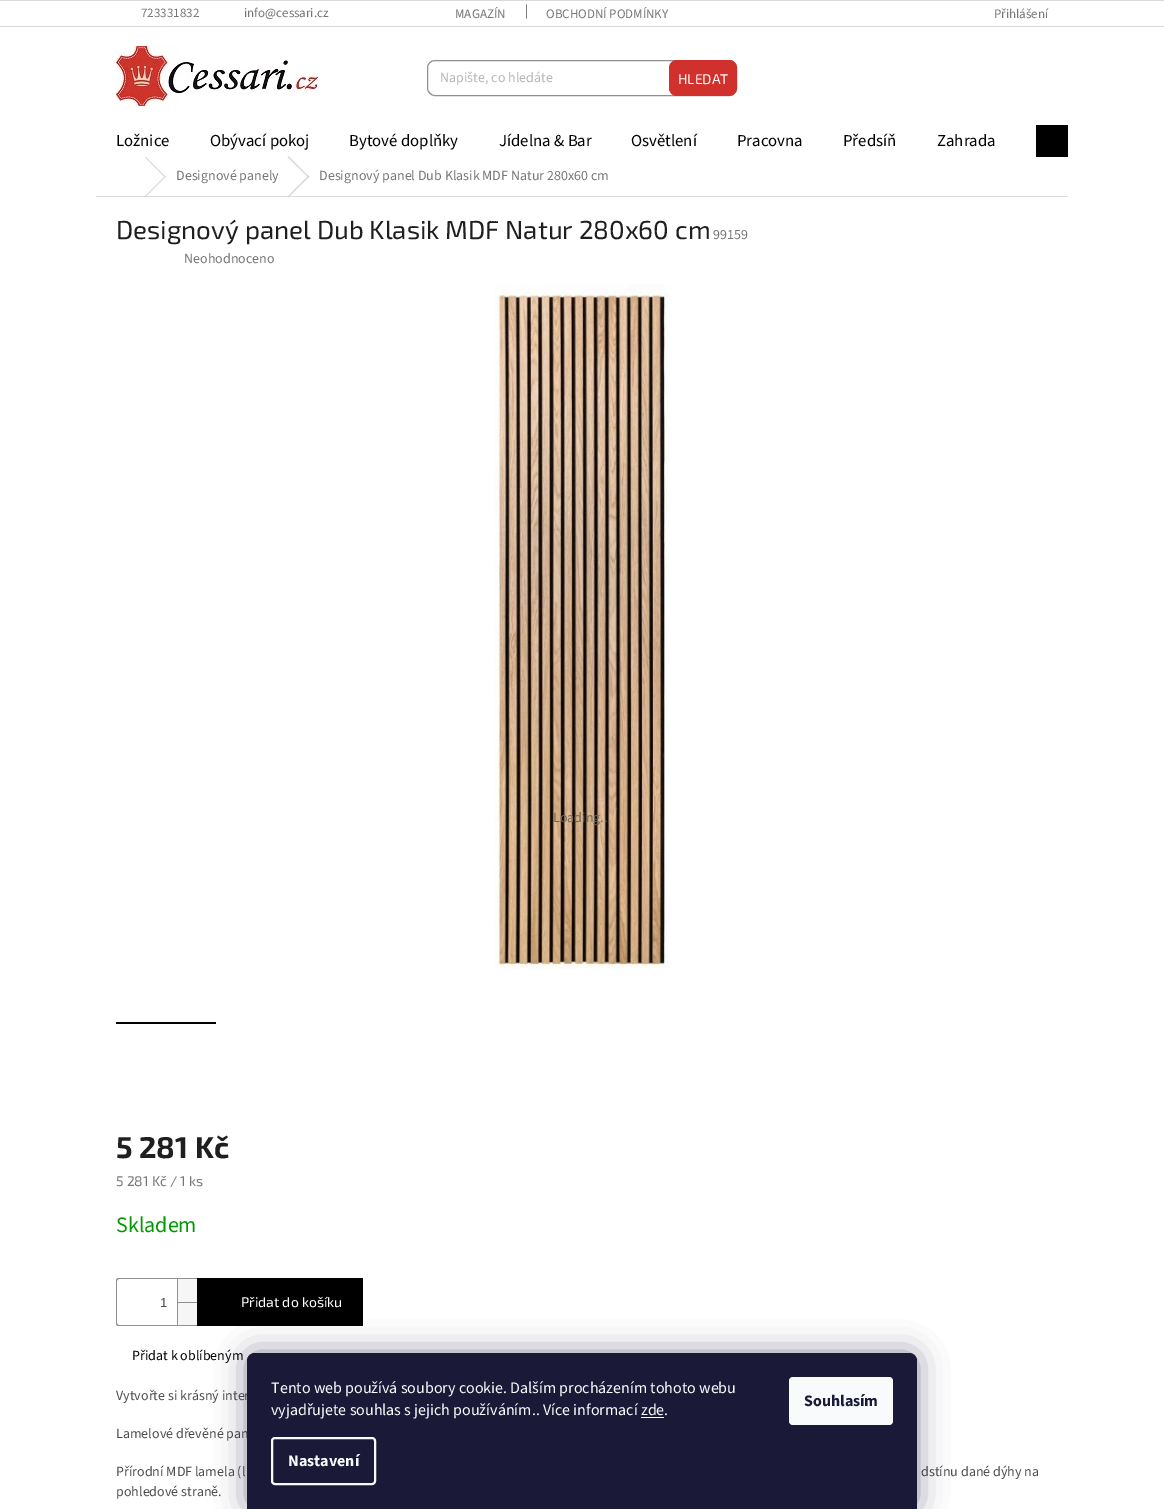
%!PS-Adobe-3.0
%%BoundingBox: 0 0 1164 1509
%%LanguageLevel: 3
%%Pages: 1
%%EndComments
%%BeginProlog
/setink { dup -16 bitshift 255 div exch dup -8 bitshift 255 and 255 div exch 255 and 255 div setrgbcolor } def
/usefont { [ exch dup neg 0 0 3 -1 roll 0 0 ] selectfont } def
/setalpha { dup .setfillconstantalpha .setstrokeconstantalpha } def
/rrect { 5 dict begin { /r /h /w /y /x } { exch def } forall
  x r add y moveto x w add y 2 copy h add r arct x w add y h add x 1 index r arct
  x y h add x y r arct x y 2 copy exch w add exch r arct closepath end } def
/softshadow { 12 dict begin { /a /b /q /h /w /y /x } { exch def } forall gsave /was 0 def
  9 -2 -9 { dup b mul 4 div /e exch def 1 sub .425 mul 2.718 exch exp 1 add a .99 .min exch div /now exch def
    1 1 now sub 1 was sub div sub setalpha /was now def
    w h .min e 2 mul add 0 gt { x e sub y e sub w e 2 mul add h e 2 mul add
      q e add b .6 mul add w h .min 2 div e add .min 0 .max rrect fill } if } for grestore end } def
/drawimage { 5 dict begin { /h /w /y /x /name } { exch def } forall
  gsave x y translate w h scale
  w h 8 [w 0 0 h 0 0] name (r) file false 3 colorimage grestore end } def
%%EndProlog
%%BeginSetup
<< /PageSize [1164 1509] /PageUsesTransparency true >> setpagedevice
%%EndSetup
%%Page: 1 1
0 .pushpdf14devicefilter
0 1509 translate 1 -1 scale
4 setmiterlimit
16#FFFFFF setink
0 0 1164 1509 rectfill
16#DADADA setink
0 0 1164 1 rectfill
0 26 1164 1 rectfill
/SourceSans3-Regular 13 usefont
16#767676 setink
[
    [(723331832) 141 17]
    [(info@cessari.cz) 244 17]
    [(MAGAZÍN) 455 18]
] { aload pop moveto show } forall
/SourceSans3-Regular 14 usefont
16#4D4D4D setink
525 15 moveto (|) show
/SourceSans3-Regular 13 usefont
16#767676 setink
546 18 moveto (OBCHODNÍ PODMÍNKY) show
994 18 moveto (Přihlášení) show
(img1.raw) 116 46 202 60 drawimage
16#919191 setink
427.5 60.5 309 35 7.5 rrect stroke
/SourceSans3-Regular 14 usefont
16#B6B6B6 setink
440 82 moveto (Napište, co hledáte) show
16#D0312C setink
669 60 68 36 8 rrect fill
/Exo2-Regular 14 usefont
16#FFFFFF setink
678 84 moveto (HLEDAT) show
/SourceSans3-Regular 16.75 usefont
16#000000 setink
[
    [(Ložnice) 116 146]
    [(Obývací pokoj) 210 146]
    [(Bytové doplňky) 349 146]
    [(Jídelna & Bar) 499 146]
    [(Osvětlení) 631 146]
    [(Pracovna) 737 146]
    [(Předsíň) 843 146]
    [(Zahrada) 937 146]
] { aload pop moveto show } forall
1036 125 32 32 rectfill
16#DADADA setink
96 196 972 1 rectfill
145 157.5 moveto 146 157 lineto 166 177 lineto 165 177.5 lineto closepath fill
165 176 moveto 166 176.5 lineto 146 196.5 lineto 145 196 lineto closepath fill
/SourceSans3-Regular 14 usefont
16#767676 setink
176 180 moveto (Designové panely) show
16#DADADA setink
287.5 157 moveto 288.5 156 lineto 309.5 177 lineto 308.5 177.5 lineto closepath fill
308.5 175.5 moveto 309.5 176.5 lineto 288.5 197.5 lineto 287.5 196.5 lineto closepath fill
16#767676 setink
319 180 moveto (Designový panel Dub Klasik MDF Natur 280x60 cm) show
/Exo2-Regular 26 usefont
16#1F1F1F setink
116 239 moveto (Designový panel Dub Klasik MDF Natur 280x60 cm) show
/SourceSans3-Regular 14 usefont
16#767676 setink
713 239 moveto (99159) show
184 263 moveto (Neohodnoceno) show
(img2.raw) 494 284 176 685 drawimage
16#736557 setink
553 822 moveto (Loading...) show
16#000000 setink
116 1022 100 2 rectfill
/Exo2-Bold 30 usefont
16#1F1F1F setink
116 1158 moveto (5 281 Kč) show
/Exo2-Regular 14 usefont
16#767676 setink
116 1186 moveto (5 281 Kč / 1 ks) show
/SourceSans3-Regular 22 usefont
16#009901 setink
116 1232 moveto (Skladem) show
16#919191 setink
119 1278 moveto 197 1278 lineto 197 1326 lineto 119 1326 lineto 117 1326 116 1325 116 1323 curveto 116 1281 lineto 116 1279 117 1278 119 1278 curveto closepath 119 1279 moveto 197 1279 lineto 197 1325 lineto 119 1325 lineto 118 1325 117 1324 117 1323 curveto 117 1281 lineto 117 1280 118 1279 119 1279 curveto closepath eofill
/LiberationSans-Regular 13 usefont
16#4D4D4D setink
160 1307 moveto (1) show
[
    [178 1279 19 23 16#F6F6F6]
    [177 1279 1 23 16#919191]
    [178 1303 19 22 16#F6F6F6]
    [177 1302 20 1 16#919191]
    [177 1302 1 23 16#919191]
    [197 1278 166 48 16#000000]
] { aload pop setink rectfill } forall
/Exo2-Regular 14 usefont
16#FFFFFF setink
241 1307 moveto (Přidat do košíku) show
/SourceSans3-Regular 14 usefont
16#000000 setink
132 1360 moveto (Přidat k oblíbeným) show
16#4D4D4D setink
[
    [(Vytvořte si krásný inter) 116 1400]
    [(Lamelové dřevěné pan) 116 1438]
    [(Přírodní MDF lamela \(l) 116 1476]
    [(dstínu dané dýhy na) 921 1476]
    [(pohledové straně.) 116 1496]
] { aload pop moveto show } forall
16#1B1939 setink
247 1353 670 156 8 15 0.5 softshadow
16#1A1937 setink
255 1353 moveto 909 1353 lineto 913.5 1353 917 1356.5 917 1361 curveto 917 1509 lineto 247 1509 lineto 247 1361 lineto 247 1356.5 250.5 1353 255 1353 curveto closepath fill
/SourceSans3-Regular 16 usefont
16#F8FAFB setink
271 1393 moveto (Tento web používá soubory cookie. Dalším procházením tohoto webu) show
271 1415 moveto (vyjadřujete souhlas s jejich používáním.. Více informací zde.) show
641 1417 23 1 rectfill
2 setlinewidth
272 1438 103 46 3 rrect stroke
/SourceSans3-Bold 16 usefont
288 1466 moveto (Nastavení) show
789 1377 104 48 4 rrect fill
16#1A1937 setink
804 1406 moveto (Souhlasím) show
.poppdf14devicefilter showpage
%%EOF
